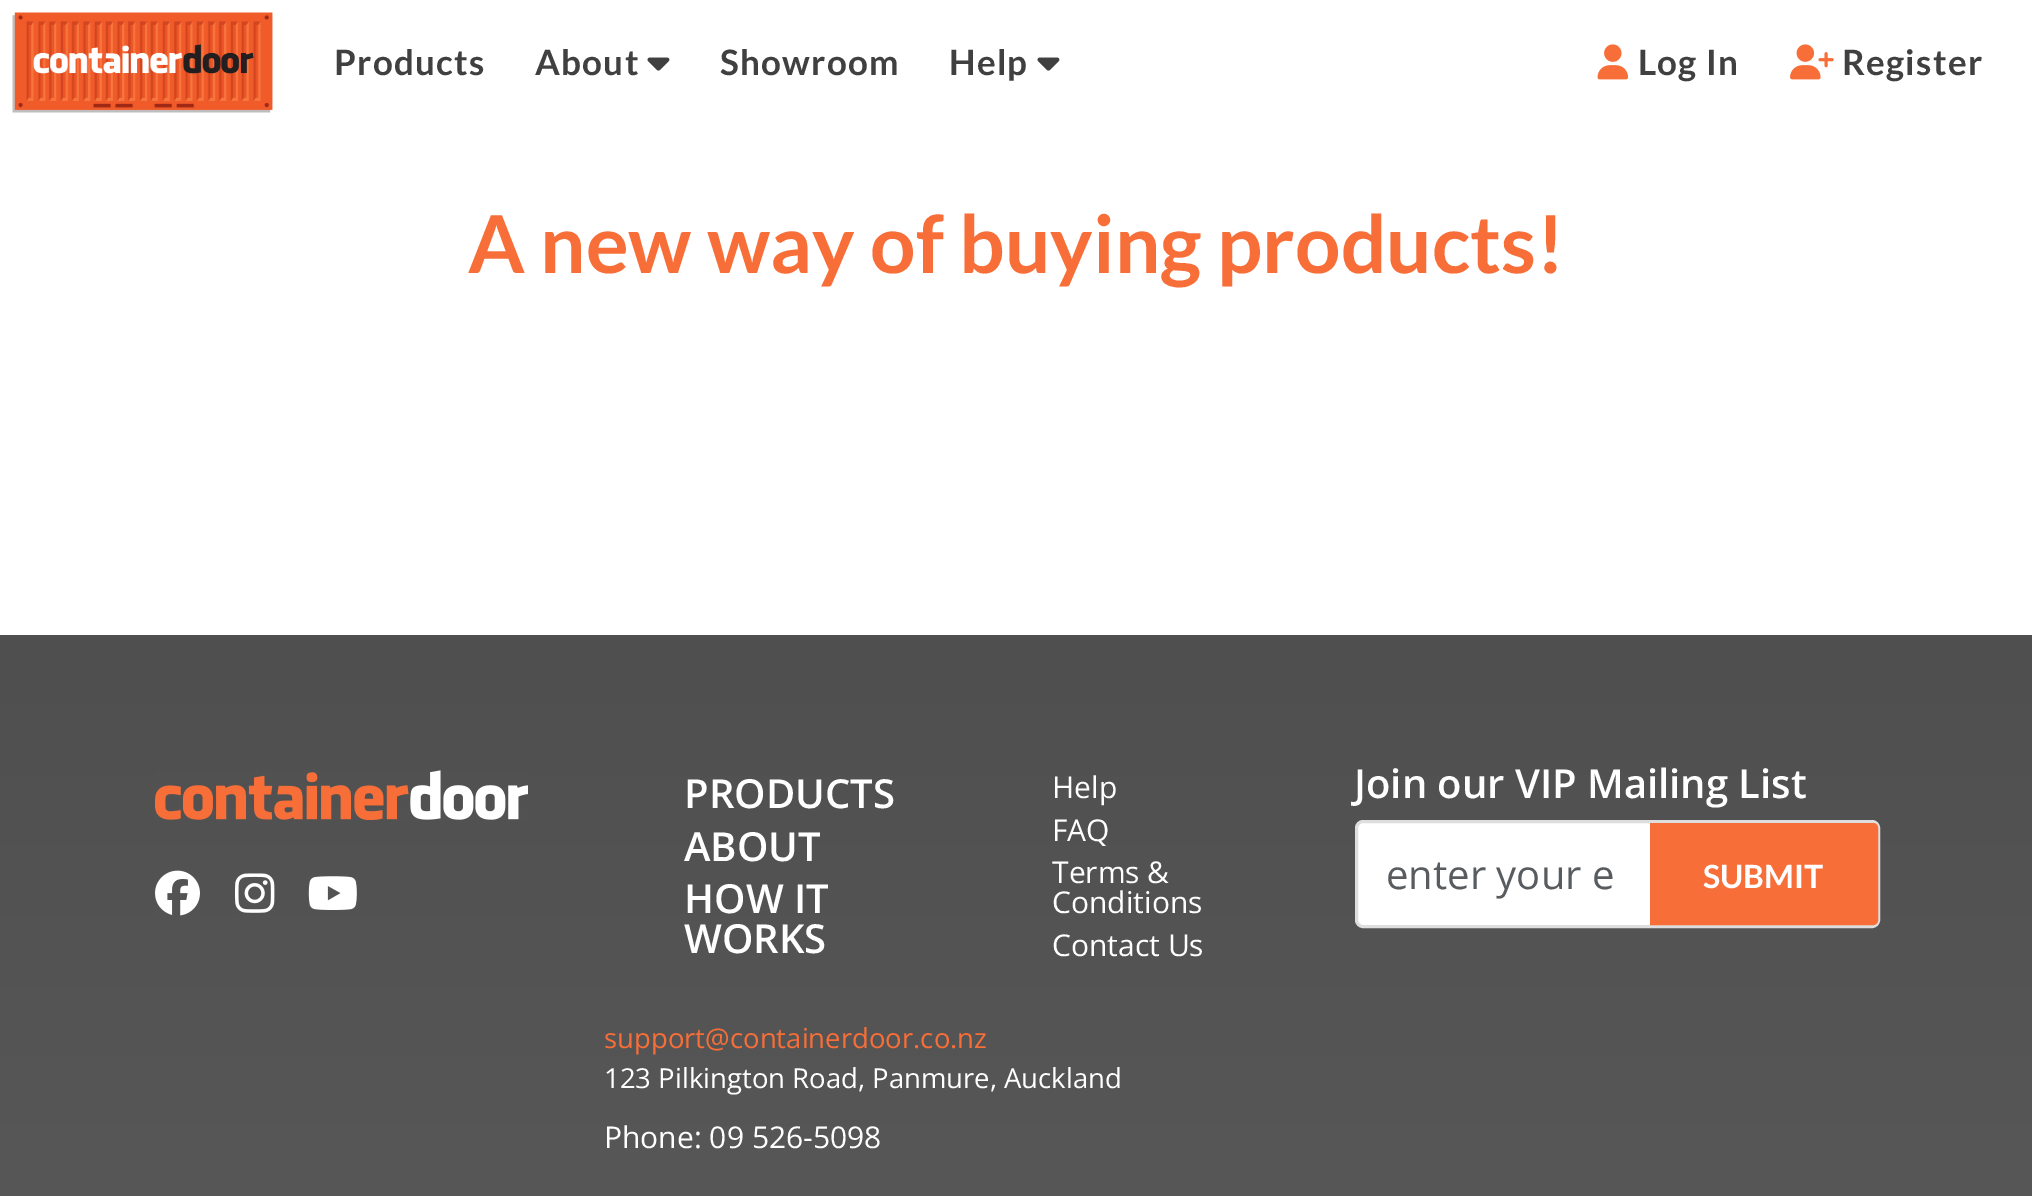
%!PS-Adobe-3.0
%%BoundingBox: 0 0 2032 1196
%%LanguageLevel: 3
%%Pages: 1
%%EndComments
%%BeginProlog
/setink { dup -16 bitshift 255 div exch dup -8 bitshift 255 and 255 div exch 255 and 255 div setrgbcolor } def
/usefont { [ exch dup neg 0 0 3 -1 roll 0 0 ] selectfont } def
/rrect { 5 dict begin { /r /h /w /y /x } { exch def } forall
  x r add y moveto x w add y 2 copy h add r arct x w add y h add x 1 index r arct
  x y h add x y r arct x y 2 copy exch w add exch r arct closepath end } def
/drawimage { 5 dict begin { /h /w /y /x /name } { exch def } forall
  gsave x y translate w h scale
  w h 8 [w 0 0 h 0 0] name (r) file false 3 colorimage grestore end } def
%%EndProlog
%%BeginSetup
<< /PageSize [2032 1196] >> setpagedevice
%%EndSetup
%%Page: 1 1
0 1196 translate 1 -1 scale
4 setmiterlimit
16#FFFFFF setink
0 0 2032 1196 rectfill
(img1.raw) 12 12 261 101 drawimage
/Lato-Bold 35 usefont
16#404040 setink
334 75 moveto 1.25 0 (Products) ashow
535 75 moveto 1.25 0 (About) ashow
(img2.raw) 647 57 23 14 drawimage
720 75 moveto 1.25 0 (Showroom) ashow
949 75 moveto 1.25 0 (Help) ashow
(img2.raw) 1037 57 23 14 drawimage
(img3.raw) 1597 44 32 36 drawimage
1638 75 moveto 1.25 0 (Log In) ashow
(img4.raw) 1790 44 44 36 drawimage
1842 75 moveto 1.25 0 (Register) ashow
/Lato-Bold 80 usefont
16#F76E38 setink
468 273 moveto (A new way of buying products!) show
gsave 0 635 moveto 2032 635 lineto 2032 1196 lineto 0 1196 lineto closepath clip newpath
<< /ShadingType 2 /ColorSpace /DeviceRGB /Coords [1016 635 1016 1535] /Extend [true true] /Function << /FunctionType 2 /Domain [0 1] /C0 [0.31 0.31 0.31] /C1 [0.361 0.361 0.361] /N 1 >> >> shfill grestore
(img5.raw) 155 770 373 50 drawimage
(img6.raw) 155 870 45 46 drawimage
(img7.raw) 235 873 40 40 drawimage
(img8.raw) 308 876 49 34 drawimage
/OpenSans-SemiBold 40 usefont
16#FFFFFF setink
[
    [(PRODUCTS) 684 808]
    [(ABOUT) 684 861]
    [(HOW IT) 684 913]
    [(WORKS) 684 953]
] { aload pop moveto show } forall
/OpenSans-Regular 30 usefont
[
    [(Help) 1052 798]
    [(FAQ) 1052 841]
    [(Terms &) 1052 883]
    [(Conditions) 1052 913]
    [(Contact Us) 1052 956]
] { aload pop moveto show } forall
/OpenSans-Regular 27.5 usefont
16#F76E38 setink
604 1048 moveto (support@containerdoor.co.nz) show
16#FFFFFF setink
604 1088 moveto (123 Pilkington Road, Panmure, Auckland) show
/OpenSans-Regular 30 usefont
604 1148 moveto (Phone: 09 526-5098) show
/OpenSans-SemiBold 40 usefont
1354 798 moveto (Join our VIP Mailing List) show
1356.5 821.5 522 105 6.5 rrect gsave fill grestore
16#DEDEDE setink
3 setlinewidth
stroke
/OpenSans-Regular 40 usefont
16#595C5F setink
1386 889 moveto (enter your e) show
16#F76E38 setink
1652.5 825.5 moveto 1873 825.5 lineto 1874.5 825.5 1875.5 826.5 1875.5 828 curveto 1875.5 920 lineto 1875.5 921.5 1874.5 922.5 1873 922.5 curveto 1652.5 922.5 lineto closepath gsave fill grestore
5 setlinewidth
stroke
/Lato-Bold 32 usefont
16#FFFFFF setink
1703 888 moveto (SUBMIT) show
showpage
%%EOF
